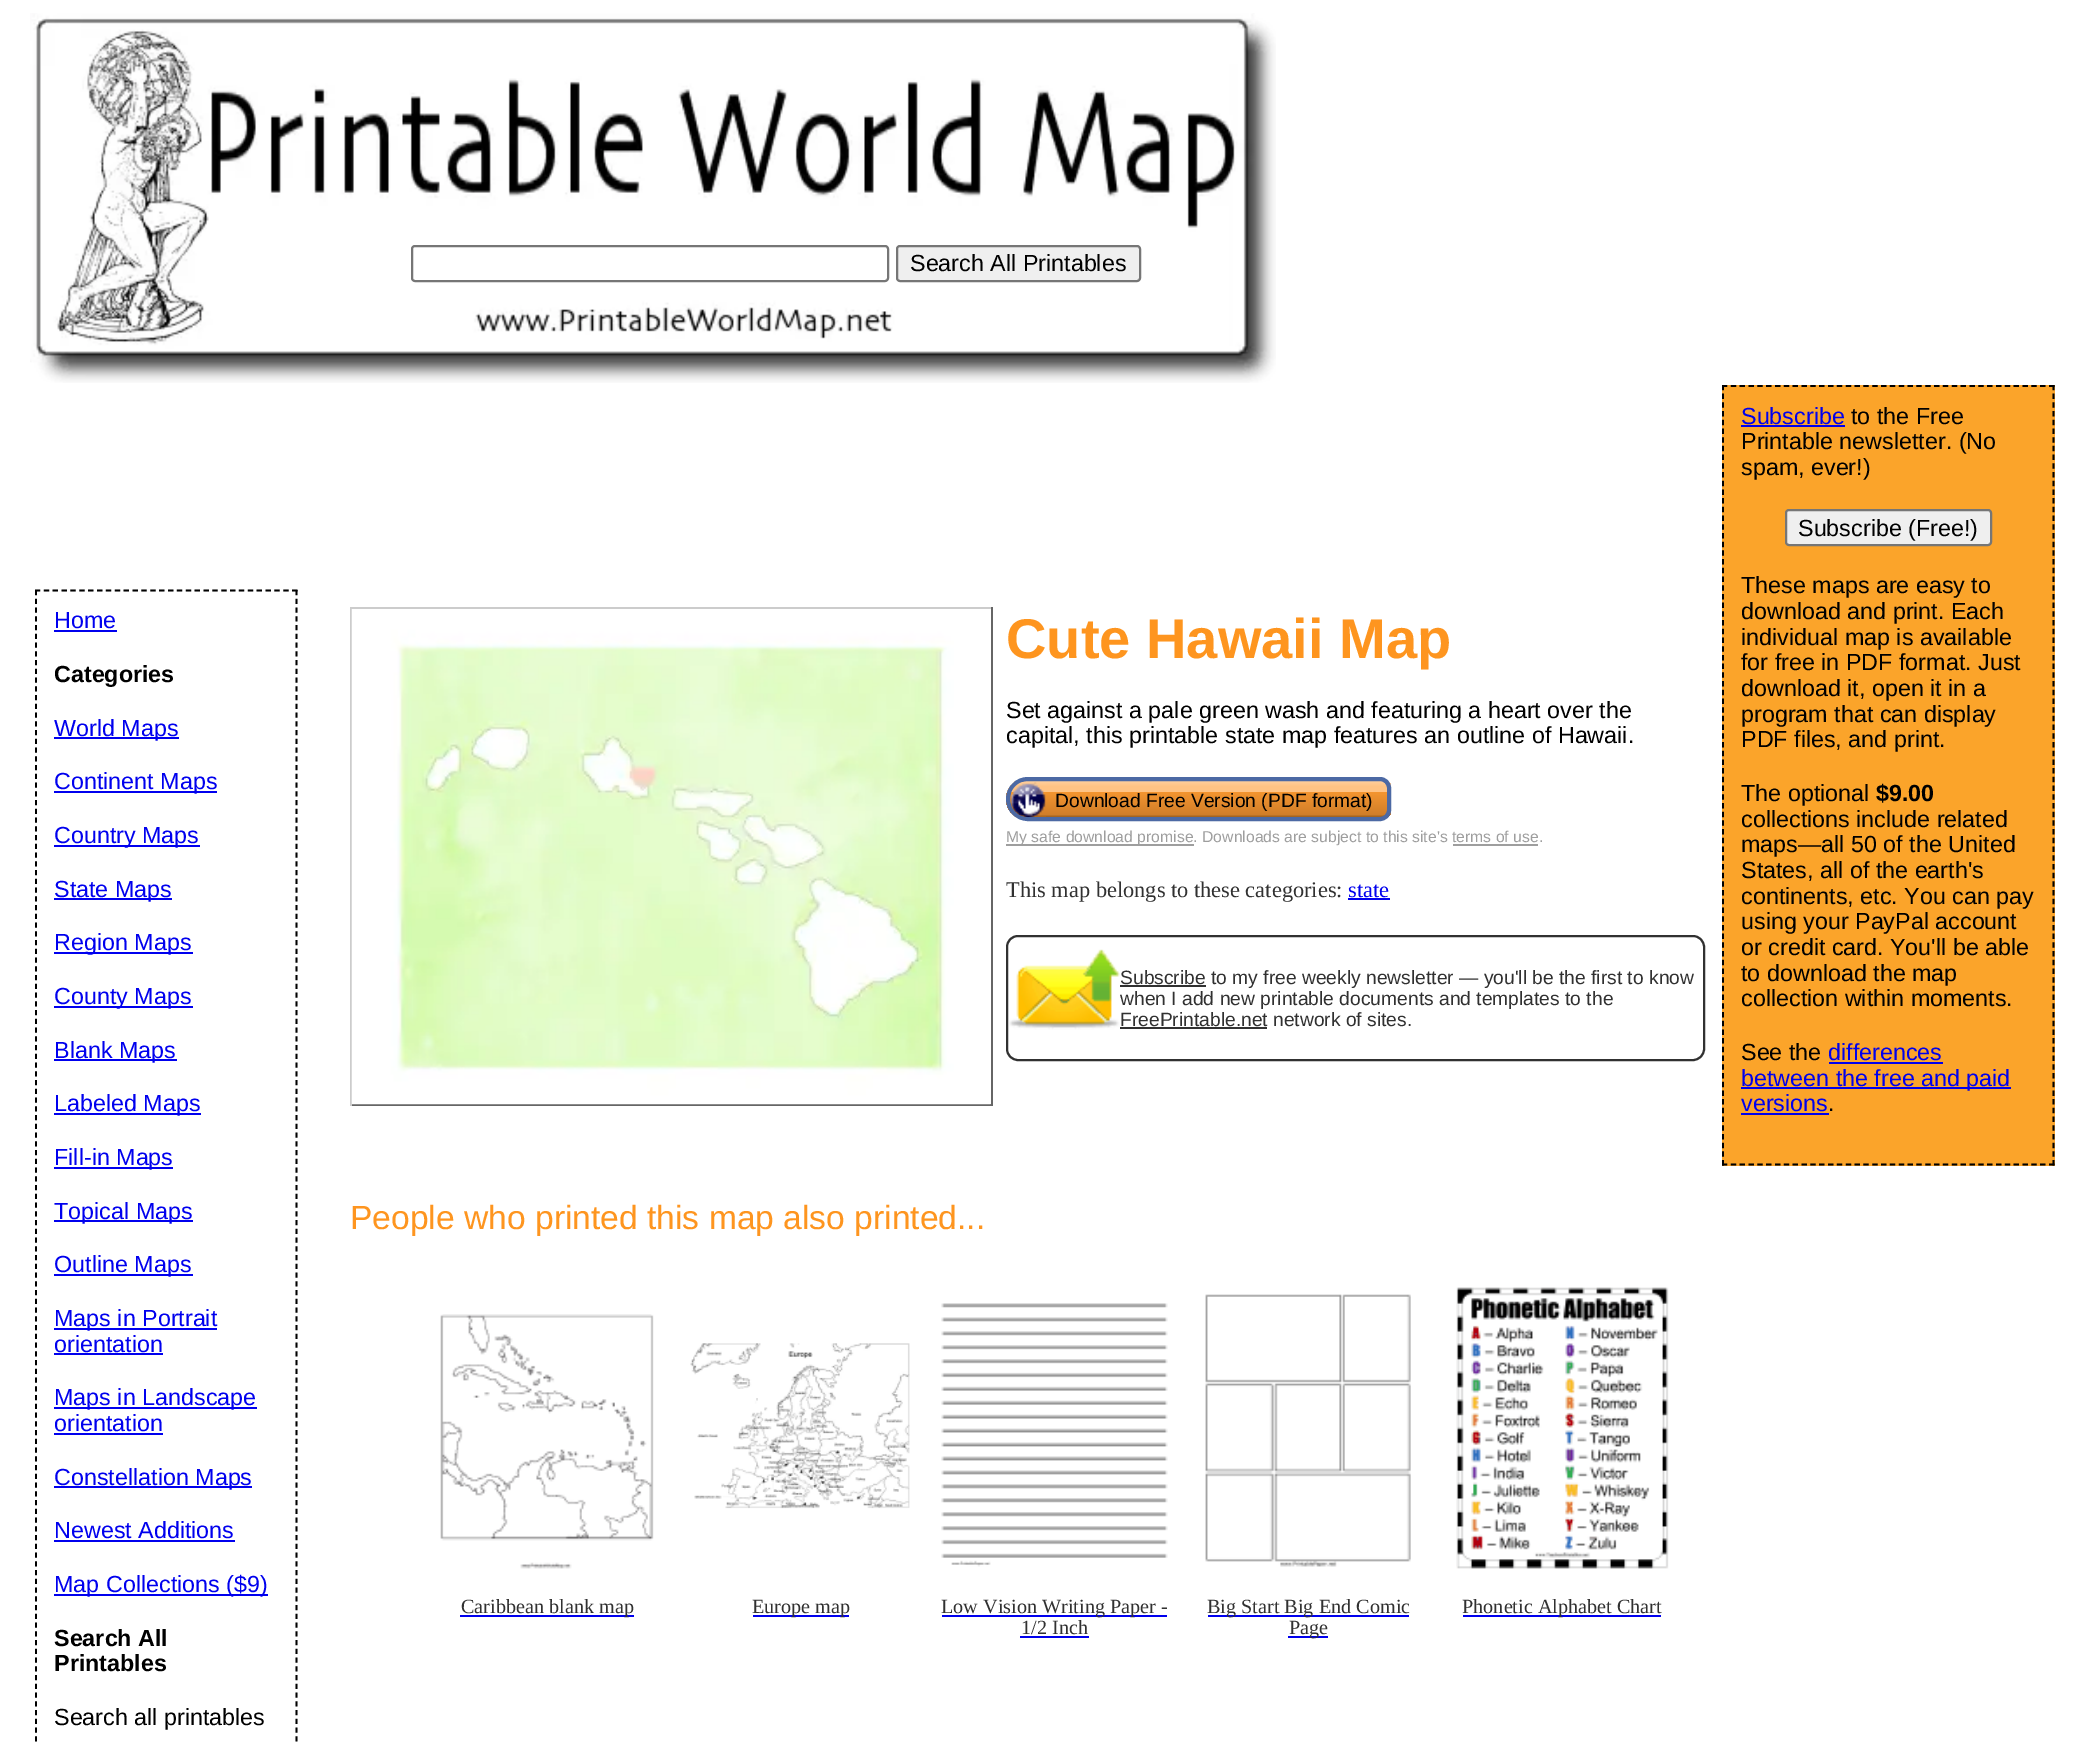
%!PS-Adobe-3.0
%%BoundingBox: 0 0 2088 1743
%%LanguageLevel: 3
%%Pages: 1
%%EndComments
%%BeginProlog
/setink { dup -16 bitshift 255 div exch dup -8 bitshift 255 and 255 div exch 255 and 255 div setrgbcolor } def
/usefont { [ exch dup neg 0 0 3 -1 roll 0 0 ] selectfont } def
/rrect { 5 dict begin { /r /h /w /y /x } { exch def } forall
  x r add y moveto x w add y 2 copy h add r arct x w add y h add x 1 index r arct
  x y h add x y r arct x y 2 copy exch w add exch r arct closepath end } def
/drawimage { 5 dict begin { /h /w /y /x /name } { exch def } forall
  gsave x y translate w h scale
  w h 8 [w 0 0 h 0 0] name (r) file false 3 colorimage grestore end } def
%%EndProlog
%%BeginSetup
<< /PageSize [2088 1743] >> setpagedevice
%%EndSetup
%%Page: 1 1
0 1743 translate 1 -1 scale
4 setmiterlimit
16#FFFFFF setink
0 0 2088 1743 rectfill
(img1.raw) 30 13 1246 370 drawimage
16#767676 setink
2 setlinewidth
412 246 476 35 3 rrect stroke
16#EFEFEF setink
897 246 243 35 3 rrect gsave fill grestore
16#767676 setink
stroke
/LiberationSans-Regular 23.3 usefont
16#000000 setink
910 271 moveto (Search All Printables) show
1.8 setlinewidth
[5.25 3.62] 0 setdash
35 590.5 moveto 297.5 590.5 lineto stroke
[5.25 3.5] 0 setdash
296.5 590 moveto 296.5 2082.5 lineto stroke
36 590 moveto 36 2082.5 lineto stroke
16#0000EE setink
54 628 moveto (Home) show
54 630 63 2 rectfill
/LiberationSans-Bold 23.3 usefont
16#000000 setink
54 682 moveto (Categories) show
16#0000EE setink
54 737 125 2 rectfill
/LiberationSans-Regular 23.3 usefont
54 736 moveto (World Maps) show
54 791 163 2 rectfill
54 789 moveto (Continent Maps) show
54 845 146 2 rectfill
54 843 moveto (Country Maps) show
54 898 118 2 rectfill
54 897 moveto (State Maps) show
54 952 139 2 rectfill
54 950 moveto (Region Maps) show
54 1006 139 2 rectfill
54 1004 moveto (County Maps) show
54 1059 123 2 rectfill
54 1058 moveto (Blank Maps) show
54 1113 147 2 rectfill
54 1111 moveto (Labeled Maps) show
54 1167 119 2 rectfill
54 1165 moveto (Fill-in Maps) show
54 1220 139 2 rectfill
54 1219 moveto (Topical Maps) show
54 1274 139 2 rectfill
54 1272 moveto (Outline Maps) show
54 1328 163 2 rectfill
54 1326 moveto (Maps in Portrait) show
54 1352 moveto (orientation) show
54 1353 109 2 rectfill
54 1407 203 2 rectfill
54 1405 moveto (Maps in Landscape) show
54 1431 moveto (orientation) show
54 1433 109 2 rectfill
54 1486 198 2 rectfill
54 1485 moveto (Constellation Maps) show
54 1538 moveto (Newest Additions) show
54 1540 181 2 rectfill
54 1594 214 2 rectfill
54 1592 moveto (Map Collections \($9\)) show
/LiberationSans-Bold 23.3 usefont
16#000000 setink
54 1646 moveto (Search All) show
54 1671 moveto (Printables) show
/LiberationSans-Regular 23.3 usefont
54 1725 moveto (Search all printables) show
[
    [350 607 642 2 16#CCCCCC]
    [991 607 2 499 16#666666]
    [350 1104 642 2 16#666666]
    [350 607 2 499 16#CCCCCC]
] { aload pop setink rectfill } forall
(img2.raw) 351 609 640 496 drawimage
/LiberationSans-Bold 56 usefont
16#FE951F setink
1006 658 moveto (Cute Hawaii Map) show
/LiberationSans-Regular 23.3 usefont
16#000000 setink
1006 718 moveto (Set against a pale green wash and featuring a heart over the) show
1006 743 moveto (capital, this printable state map features an outline of Hawaii.) show
gsave
1028 777 moveto 1380 777 lineto 1386 777 1391 782 1391 788 curveto 1391 810 lineto 1391 816 1386 821 1380 821 curveto 1028 821 lineto 1016 821 1006 811 1006 799 curveto 1006 787 1016 777 1028 777 curveto closepath clip newpath
gsave 1006 781 moveto 1391 781 lineto 1391 817 lineto 1006 817 lineto closepath clip newpath
<< /ShadingType 2 /ColorSpace /DeviceRGB /Coords [1199 781 1199 817] /Extend [true true] /Function << /FunctionType 3 /Domain [0 1] /Functions [<< /FunctionType 2 /Domain [0 1] /C0 [1 0.816 0.62] /C1 [1 0.765 0.518] /N 1 >> << /FunctionType 2 /Domain [0 1] /C0 [1 0.765 0.518] /C1 [1 0.765 0.518] /N 1 >> << /FunctionType 2 /Domain [0 1] /C0 [1 0.765 0.518] /C1 [0.957 0.584 0.188] /N 1 >> << /FunctionType 2 /Domain [0 1] /C0 [0.957 0.584 0.188] /C1 [0.816 0.494 0.161] /N 1 >> << /FunctionType 2 /Domain [0 1] /C0 [0.816 0.494 0.161] /C1 [0.749 0.455 0.145] /N 1 >> << /FunctionType 2 /Domain [0 1] /C0 [0.749 0.455 0.145] /C1 [0.643 0.392 0.125] /N 1 >>] /Bounds [0.15 0.3 0.31 0.94 0.95] /Encode [0 1 0 1 0 1 0 1 0 1 0 1] >> >> shfill grestore
grestore
16#4C69A4 setink
4 setlinewidth
[] 0 setdash
1028 779 moveto 1380 779 lineto 1385 779 1389 783 1389 788 curveto 1389 810 lineto 1389 815 1385 819 1380 819 curveto 1028 819 lineto 1017 819 1008 810 1008 799 curveto 1008 788 1017 779 1028 779 curveto closepath stroke
(img3.raw) 1011 782 35 36 drawimage
/LiberationSans-Regular 19.25 usefont
16#000000 setink
1055 807 moveto (Download Free Version \(PDF format\)) show
16#9E9E9E setink
1006 844 188 2 rectfill
/LiberationSans-Regular 15.75 usefont
1006 842 moveto (My safe download promise. Downloads are subject to this site's terms of use.) show
1453 844 85 2 rectfill
/LiberationSerif-Regular 22.4 usefont
16#313131 setink
1006 897 moveto (This map belongs to these categories:) show
16#0000EE setink
1348 897 moveto (state) show
1348 898 42 2 rectfill
16#313131 setink
2 setlinewidth
1007 936 697 124 11 rrect stroke
(img4.raw) 1009 949 111 81 drawimage
1120 985 86 2 rectfill
/LiberationSans-Regular 19.25 usefont
[
    [(Subscribe to my free weekly newsletter — you'll be the first to know) 1120 984]
    [(when I add new printable documents and templates to the) 1120 1005]
    [(FreePrintable.net network of sites.) 1120 1026]
] { aload pop moveto show } forall
1120 1027 147 2 rectfill
/LiberationSans-Regular 33.6 usefont
16#FE951F setink
350 1229 moveto (People who printed this map also printed...) show
(img5.raw) 440 1314 214 255 drawimage
16#0000EE setink
460 1615 174 2 rectfill
/LiberationSerif-Regular 20.2 usefont
16#313131 setink
461 1613 moveto (Caribbean blank map) show
(img6.raw) 690 1343 220 166 drawimage
16#0000EE setink
753 1615 96 2 rectfill
16#313131 setink
752 1613 moveto (Europe map) show
(img7.raw) 941 1303 227 264 drawimage
16#0000EE setink
942 1615 225 2 rectfill
16#313131 setink
941 1613 moveto (Low Vision Writing Paper -) show
1021 1634 moveto (1/2 Inch) show
16#0000EE setink
1020 1636 69 2 rectfill
(img8.raw) 1205 1294 206 273 drawimage
1208 1615 201 2 rectfill
16#313131 setink
1207 1613 moveto (Big Start Big End Comic) show
16#0000EE setink
1288 1636 40 2 rectfill
16#313131 setink
1289 1634 moveto (Page) show
(img9.raw) 1456 1287 213 282 drawimage
16#0000EE setink
1463 1615 198 2 rectfill
16#313131 setink
1462 1613 moveto (Phonetic Alphabet Chart) show
16#FBA42A setink
1722 385 333 781 rectfill
16#000000 setink
1.8 setlinewidth
[5.25 3.59] 0 setdash
1722 386 moveto 2054.5 386 lineto stroke
[5.25 3.46] 0 setdash
2053.5 385 moveto 2053.5 1165.5 lineto stroke
[5.25 3.59] 0 setdash
1722 1164.5 moveto 2054.5 1164.5 lineto stroke
[5.25 3.46] 0 setdash
1723 385 moveto 1723 1165.5 lineto stroke
/LiberationSans-Regular 23.3 usefont
16#0000EE setink
1741 424 moveto (Subscribe) show
1741 425 104 2 rectfill
16#000000 setink
[
    [(to the Free) 1851 424]
    [(Printable newsletter. \(No) 1741 449]
    [(spam, ever!\)) 1741 475]
] { aload pop moveto show } forall
16#EFEFEF setink
1786 510 205 35 3 rrect gsave fill grestore
16#767676 setink
2 setlinewidth
[] 0 setdash
stroke
16#000000 setink
[
    [(Subscribe \(Free!\)) 1798 536]
    [(These maps are easy to) 1741 593]
    [(download and print. Each) 1741 619]
    [(individual map is available) 1741 645]
    [(for free in PDF format. Just) 1741 670]
    [(download it, open it in a) 1741 696]
    [(program that can display) 1741 722]
    [(PDF files, and print.) 1741 747]
    [(The optional) 1741 801]
] { aload pop moveto show } forall
/LiberationSans-Bold 23.3 usefont
1876 801 moveto ($9.00) show
/LiberationSans-Regular 23.3 usefont
[
    [(collections include related) 1741 827]
    [(maps—all 50 of the United) 1741 852]
    [(States, all of the earth's) 1741 878]
    [(continents, etc. You can pay) 1741 904]
    [(using your PayPal account) 1741 929]
    [(or credit card. You'll be able) 1741 955]
    [(to download the map) 1741 981]
    [(collection within moments.) 1741 1006]
    [(See the) 1741 1060]
] { aload pop moveto show } forall
16#0000EE setink
1828 1060 moveto (differences) show
1829 1062 114 2 rectfill
1741 1087 270 2 rectfill
1741 1086 moveto (between the free and paid) show
1741 1111 moveto (versions) show
1741 1113 88 2 rectfill
16#000000 setink
1828 1111 moveto (.) show
showpage
%%EOF
